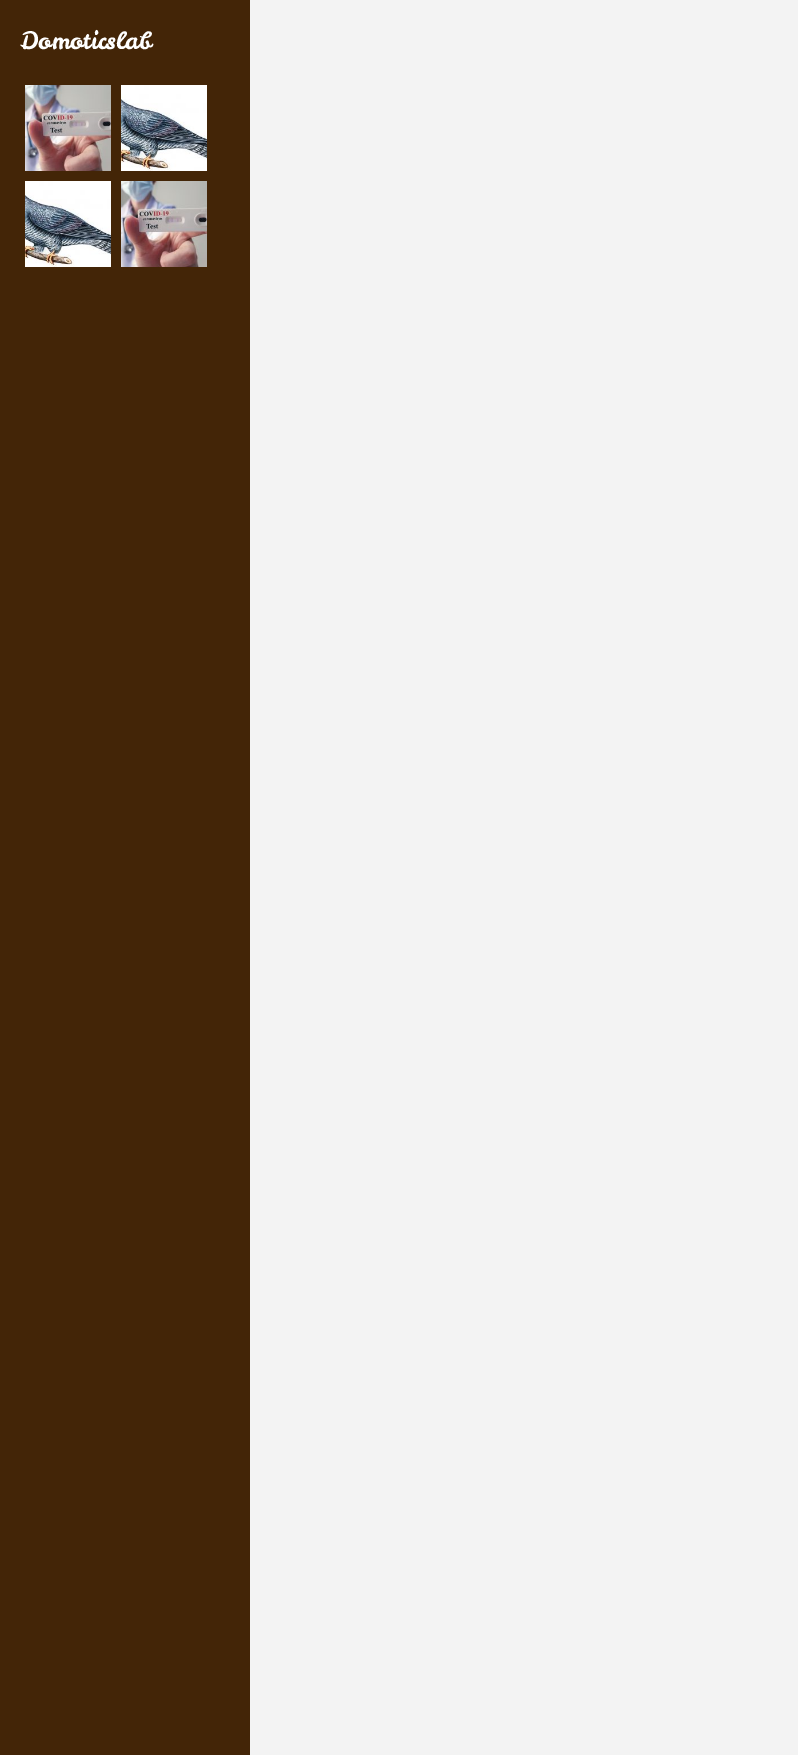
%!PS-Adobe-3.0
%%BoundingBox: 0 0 798 1755
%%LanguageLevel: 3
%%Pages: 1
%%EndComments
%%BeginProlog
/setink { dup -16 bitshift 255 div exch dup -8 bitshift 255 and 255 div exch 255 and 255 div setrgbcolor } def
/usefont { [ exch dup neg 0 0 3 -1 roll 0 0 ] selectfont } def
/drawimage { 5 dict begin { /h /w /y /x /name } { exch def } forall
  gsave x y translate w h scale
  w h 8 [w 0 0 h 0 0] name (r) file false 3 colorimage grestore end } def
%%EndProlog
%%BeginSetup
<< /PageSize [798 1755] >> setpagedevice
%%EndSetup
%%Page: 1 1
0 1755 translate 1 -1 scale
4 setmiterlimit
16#F3F3F3 setink
0 0 798 1755 rectfill
16#432507 setink
0 0 250 1755 rectfill
/LeckerliOne-Regular 24 usefont
16#FFFFFF setink
20 49 moveto (Domoticslab) show
(img1.raw) 25 85 86 86 drawimage
(img2.raw) 121 85 86 86 drawimage
(img3.raw) 25 181 86 86 drawimage
(img4.raw) 121 181 86 86 drawimage
showpage
%%EOF
